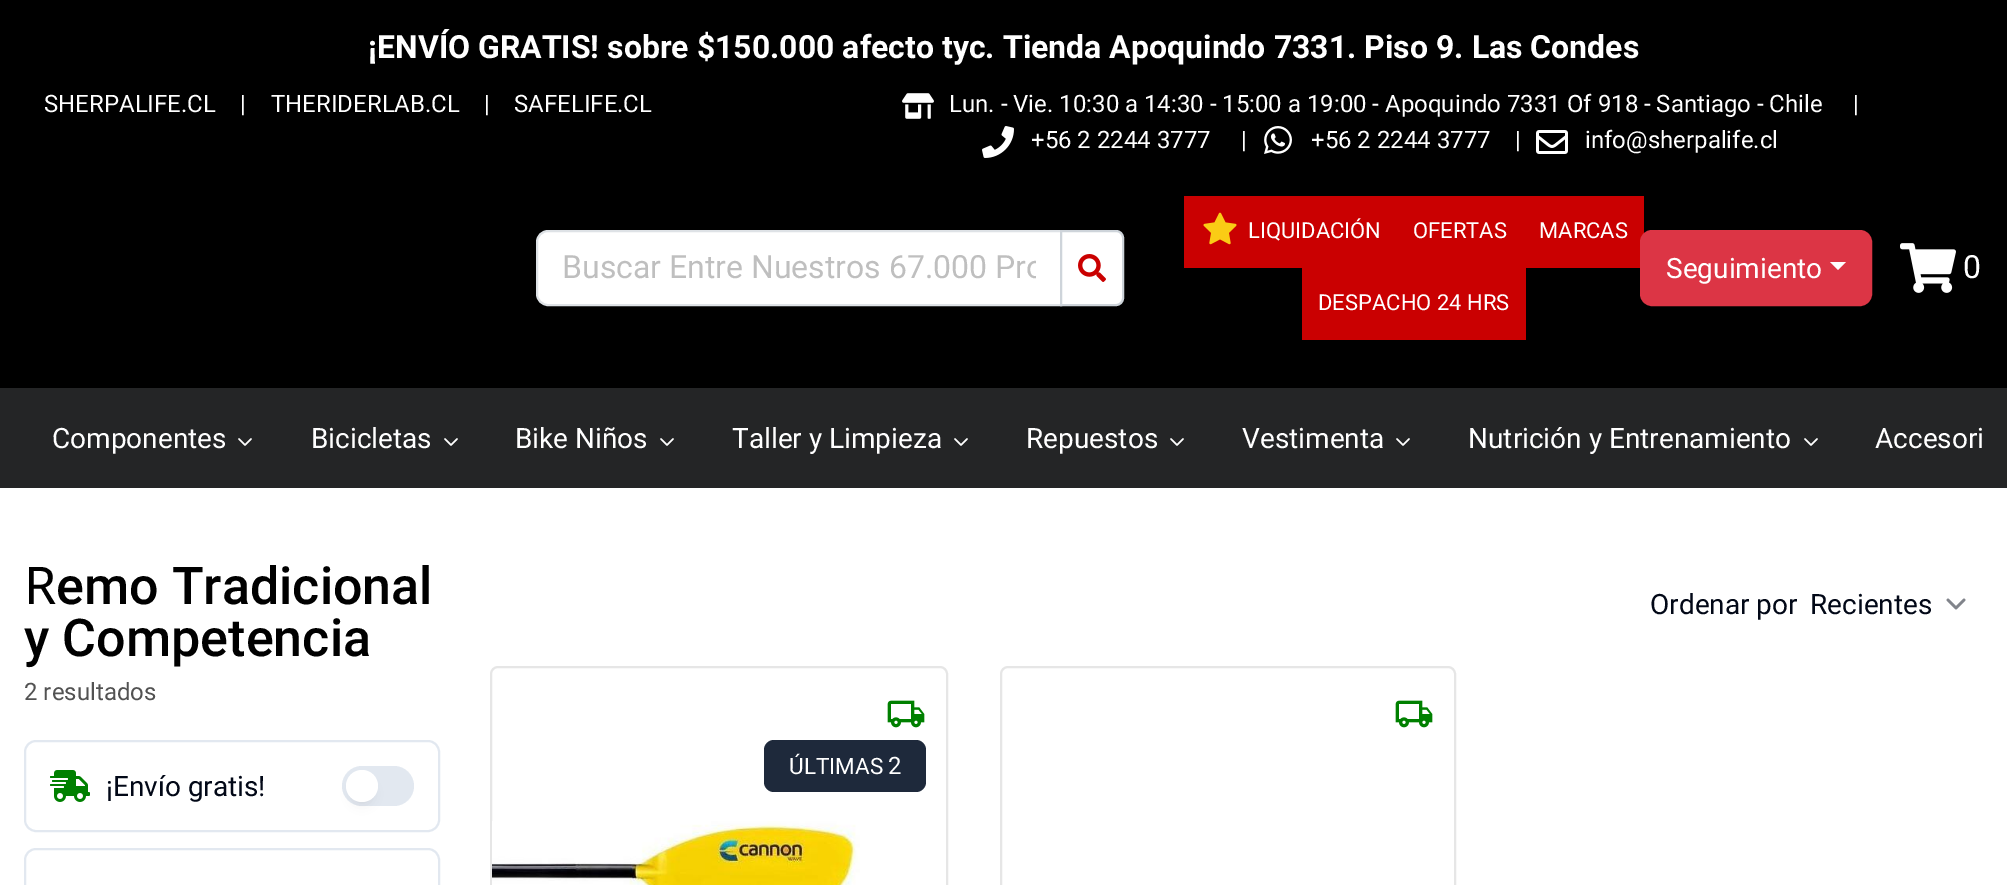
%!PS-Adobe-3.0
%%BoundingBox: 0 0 2007 885
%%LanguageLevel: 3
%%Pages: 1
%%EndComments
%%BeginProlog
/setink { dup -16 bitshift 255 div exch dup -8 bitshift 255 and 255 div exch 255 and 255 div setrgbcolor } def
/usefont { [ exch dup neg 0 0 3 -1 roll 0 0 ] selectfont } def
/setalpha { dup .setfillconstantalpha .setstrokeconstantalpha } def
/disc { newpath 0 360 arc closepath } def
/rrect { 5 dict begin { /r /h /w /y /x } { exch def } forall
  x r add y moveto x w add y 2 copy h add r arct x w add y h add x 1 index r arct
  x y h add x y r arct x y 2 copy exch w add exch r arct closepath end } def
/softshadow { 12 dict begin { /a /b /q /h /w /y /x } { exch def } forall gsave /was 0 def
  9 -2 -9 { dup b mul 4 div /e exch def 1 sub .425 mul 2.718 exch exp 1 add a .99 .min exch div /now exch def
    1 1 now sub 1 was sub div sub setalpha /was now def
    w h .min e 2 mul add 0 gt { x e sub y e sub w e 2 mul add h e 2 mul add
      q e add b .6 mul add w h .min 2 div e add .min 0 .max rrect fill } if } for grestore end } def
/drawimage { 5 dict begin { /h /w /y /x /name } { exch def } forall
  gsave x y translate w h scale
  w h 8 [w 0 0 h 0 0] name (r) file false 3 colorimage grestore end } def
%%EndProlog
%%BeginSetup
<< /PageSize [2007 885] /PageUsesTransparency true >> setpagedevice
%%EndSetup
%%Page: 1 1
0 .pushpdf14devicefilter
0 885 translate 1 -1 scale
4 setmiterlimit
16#FFFFFF setink
0 0 2007 885 rectfill
16#000000 setink
0 0 2007 388 rectfill
/Roboto-Bold 32 usefont
16#FFFFFF setink
368 58 moveto (¡ENVÍO GRATIS! sobre $150.000 afecto tyc. Tienda Apoquindo 7331. Piso 9. Las Condes) show
/Roboto-Regular 24 usefont
[
    [(SHERPALIFE.CL) 44 112]
    [(|) 240 112]
    [(THERIDERLAB.CL) 271 112]
    [(|) 484 112]
    [(SAFELIFE.CL) 514 112]
] { aload pop moveto show } forall
(img1.raw) 902 93 32 26 drawimage
949 112 moveto (Lun. - Vie. 10:30 a 14:30 - 15:00 a 19:00 - Apoquindo 7331 Of 918 - Santiago - Chile) show
1853 112 moveto (|) show
(img2.raw) 982 126 32 32 drawimage
1031 148 moveto (+56 2 2244 3777) show
1241 148 moveto (|) show
(img3.raw) 1264 126 28 28 drawimage
1311 148 moveto (+56 2 2244 3777) show
1515 148 moveto (|) show
(img4.raw) 1536 130 32 24 drawimage
1585 148 moveto (info@sherpalife.cl) show
548 231 moveto 1061 231 lineto 1061 305 lineto 548 305 lineto 542 305 537 300 537 294 curveto 537 242 lineto 537 236 542 231 548 231 curveto closepath gsave fill grestore
16#DEE2E6 setink
2 setlinewidth
stroke
gsave
562 248 474 38 rectclip
/Roboto-Regular 32 usefont
16#BFBFBF setink
562 278 moveto (Buscar Entre Nuestros 67.000 Pro) show
grestore
16#FFFFFF setink
1061 231 moveto 1116 231 lineto 1120 231 1123 234 1123 238 curveto 1123 298 lineto 1123 302 1120 305 1116 305 curveto 1061 305 lineto closepath gsave fill grestore
16#CED4DA setink
stroke
(img5.raw) 1078 254 28 28 drawimage
16#CA0001 setink
1184 196 460 72 rectfill
(img6.raw) 1203 212 34 33 drawimage
/Roboto-Regular 22 usefont
16#FFFFFF setink
[
    [(LIQUIDACIÓN) 1248 238]
    [(OFERTAS) 1413 238]
    [(MARCAS) 1539 238]
] { aload pop moveto show } forall
16#CA0001 setink
1302 268 224 72 rectfill
16#FFFFFF setink
1318 310 moveto (DESPACHO 24 HRS) show
16#DC3545 setink
1641 231 230 74 11 rrect gsave fill grestore
stroke
/Roboto-Regular 28 usefont
16#FFFFFF setink
1666 278 moveto (Seguimiento) show
1830 262 moveto 1846 262 lineto 1838 270 lineto closepath fill
(img7.raw) 1900 243 56 50 drawimage
/Roboto-Regular 32 usefont
1963 278 moveto (0) show
16#242526 setink
0 388 2007 100 rectfill
/Roboto-Regular 28 usefont
16#FFFFFF setink
52 448 moveto (Componentes) show
(img8.raw) 238 438 14 8 drawimage
311 448 moveto (Bicicletas) show
(img8.raw) 444 438 14 8 drawimage
515 448 moveto (Bike Niños) show
(img8.raw) 660 438 14 8 drawimage
732 448 moveto (Taller y Limpieza) show
(img8.raw) 954 438 14 8 drawimage
1026 448 moveto (Repuestos) show
(img8.raw) 1170 438 14 8 drawimage
1242 448 moveto (Vestimenta) show
(img8.raw) 1396 438 14 8 drawimage
1468 448 moveto (Nutrición y Entrenamiento) show
(img8.raw) 1804 438 14 8 drawimage
1875 448 moveto (Accesori) show
/NotoSans-Regular 52 usefont
16#000000 setink
24 604 moveto (R) show
/Roboto-Medium 52 usefont
56 604 moveto (emo Tradicional) show
24 656 moveto (y Competencia) show
/Roboto-Regular 24 usefont
16#525252 setink
24 700 moveto (2 resultados) show
16#E2E8F0 setink
25 741 414 90 11 rrect stroke
(img9.raw) 50 770 40 32 drawimage
/Roboto-Regular 28 usefont
16#020817 setink
106 796 moveto (¡Envío gratis!) show
16#E2E8F0 setink
342 766 72 40 20 rrect fill
16#000000 setink
354 786 16 16 8 6 0.1 softshadow
16#FFFFFF setink
362 786 16 disc fill
16#E2E8F0 setink
25 849 414 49 11 rrect stroke
16#020817 setink
1650 614 moveto (Ordenar por) show
1810 614 moveto (Recientes) show
16#81848B setink
2.7 setlinewidth
1 setlinecap
1 setlinejoin
1948 600 moveto 1956 608 lineto 1964 600 lineto stroke
16#E6E6E6 setink
2 setlinewidth
0 setlinecap
0 setlinejoin
491 667 456 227 7 rrect stroke
(img10.raw) 492 821 368 64 drawimage
(img11.raw) 887 700 38 28 drawimage
16#1E293B setink
764 740 162 52 10 rrect fill
/Roboto-Regular 22.5 usefont
16#FFFFFF setink
789 774 moveto (ÚLTIMAS) show
/Roboto-Regular 24 usefont
888 774 moveto (2) show
16#E6E6E6 setink
1001 667 454 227 7 rrect stroke
(img11.raw) 1395 700 38 28 drawimage
.poppdf14devicefilter showpage
%%EOF
